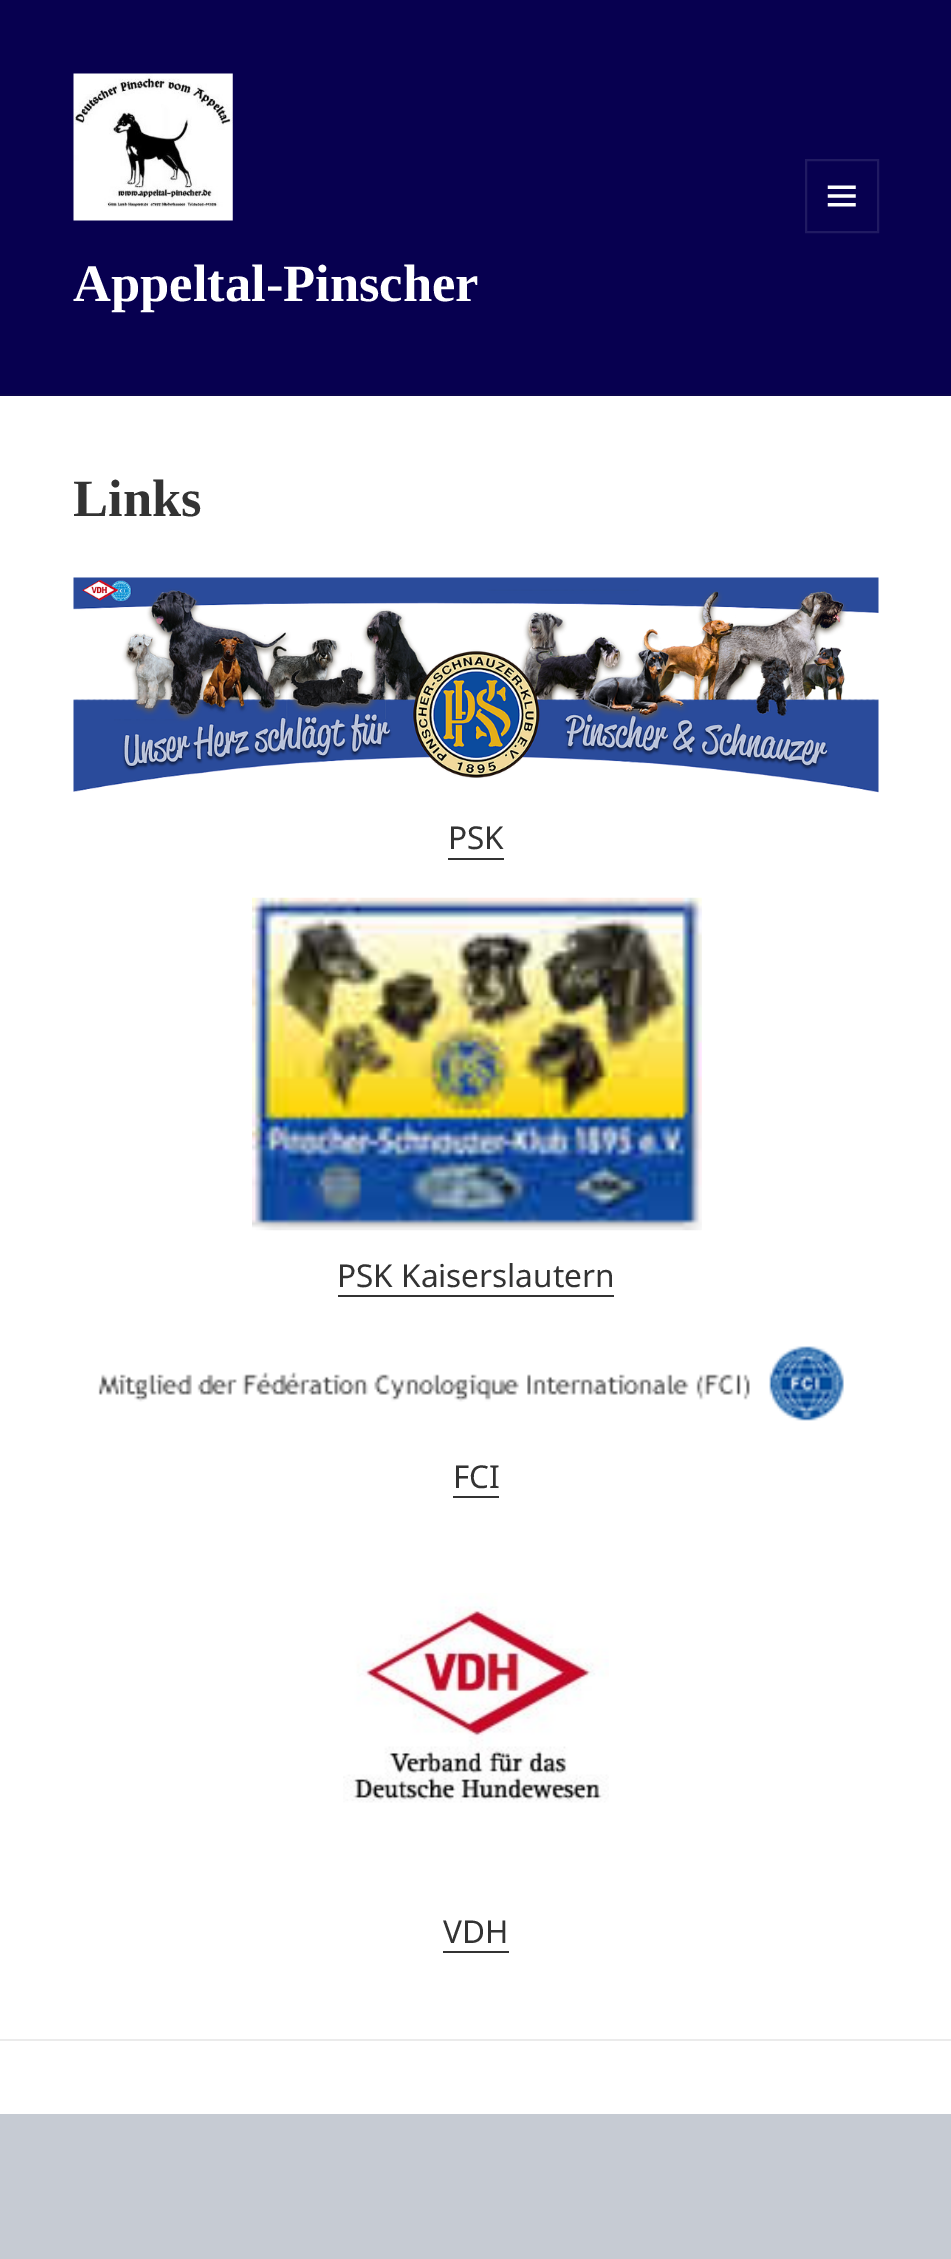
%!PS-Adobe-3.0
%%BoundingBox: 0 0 951 2259
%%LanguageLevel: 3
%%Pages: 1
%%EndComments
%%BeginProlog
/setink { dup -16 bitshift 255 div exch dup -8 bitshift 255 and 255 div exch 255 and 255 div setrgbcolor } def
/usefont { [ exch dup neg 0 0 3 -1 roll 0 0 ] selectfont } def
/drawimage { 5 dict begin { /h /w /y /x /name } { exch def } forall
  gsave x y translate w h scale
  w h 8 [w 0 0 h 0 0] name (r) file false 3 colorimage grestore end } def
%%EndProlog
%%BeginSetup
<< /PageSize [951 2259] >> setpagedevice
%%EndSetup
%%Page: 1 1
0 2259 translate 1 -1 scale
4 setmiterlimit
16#C6CBD3 setink
0 0 951 2259 rectfill
16#070050 setink
0 0 951 394 rectfill
16#0B054D setink
0 394 951 2 rectfill
(img1.raw) 73 73 160 148 drawimage
16#201A62 setink
2 setlinewidth
806 160 72 72 rectstroke
(img2.raw) 827 185 29 22 drawimage
/LiberationSerif-Bold 52.5 usefont
16#FFFFFF setink
73 301 moveto (Appeltal-Pinscher) show
0 396 951 1643 rectfill
16#333333 setink
73 516 moveto (Links) show
(img3.raw) 73 577 806 216 drawimage
/NotoSans-Regular 31.5 usefont
448 849 moveto (PSK) show
448 858 56 2 rectfill
(img4.raw) 252 897 450 334 drawimage
337 1287 moveto (PSK Kaiserslautern) show
338 1295 276 2 rectfill
(img5.raw) 98 1346 746 75 drawimage
453 1488 moveto (FCI) show
453 1496 46 2 rectfill
(img6.raw) 343 1593 266 210 drawimage
443 1943 moveto (VDH) show
[
    [443 1951 66 2 16#333333]
    [0 2041 951 73 16#FFFFFF]
    [0 2039 951 2 16#EBEBEB]
] { aload pop setink rectfill } forall
showpage
%%EOF
